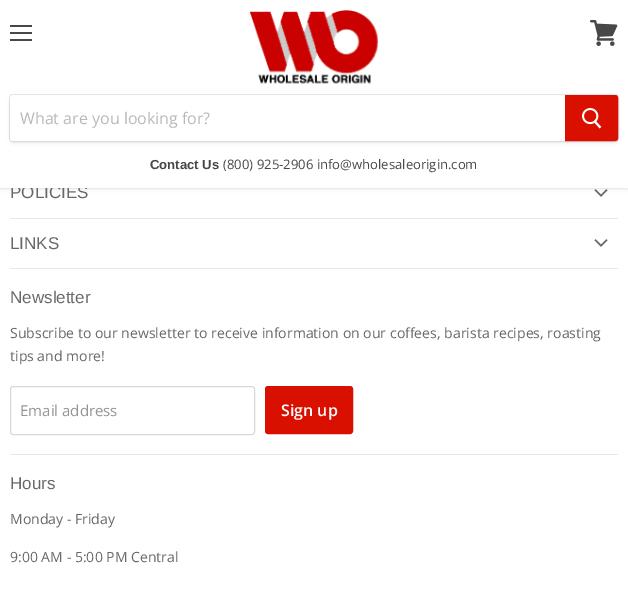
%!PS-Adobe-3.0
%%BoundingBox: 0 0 628 594
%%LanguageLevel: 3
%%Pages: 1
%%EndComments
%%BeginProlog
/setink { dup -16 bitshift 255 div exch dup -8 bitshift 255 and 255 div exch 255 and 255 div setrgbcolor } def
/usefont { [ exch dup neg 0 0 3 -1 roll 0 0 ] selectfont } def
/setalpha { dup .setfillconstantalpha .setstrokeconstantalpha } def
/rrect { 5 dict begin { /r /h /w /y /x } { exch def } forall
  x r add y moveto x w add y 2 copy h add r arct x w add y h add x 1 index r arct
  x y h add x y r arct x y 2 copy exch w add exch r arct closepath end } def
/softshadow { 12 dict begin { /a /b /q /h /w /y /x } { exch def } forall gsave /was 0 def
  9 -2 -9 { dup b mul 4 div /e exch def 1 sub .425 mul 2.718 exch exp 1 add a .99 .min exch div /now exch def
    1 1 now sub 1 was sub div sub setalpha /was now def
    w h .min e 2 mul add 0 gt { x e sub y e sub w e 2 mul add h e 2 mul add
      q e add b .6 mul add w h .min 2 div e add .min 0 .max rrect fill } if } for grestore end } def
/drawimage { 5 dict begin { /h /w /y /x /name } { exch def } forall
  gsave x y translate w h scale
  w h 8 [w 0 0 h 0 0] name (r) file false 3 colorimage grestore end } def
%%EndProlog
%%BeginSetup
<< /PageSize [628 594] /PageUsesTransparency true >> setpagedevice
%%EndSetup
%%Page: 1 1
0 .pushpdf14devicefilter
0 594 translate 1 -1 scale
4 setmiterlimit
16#FFFFFF setink
0 0 628 594 rectfill
(img4.raw) 594 189 14 8 drawimage
16#7F7F7F setink
0 1 628 188 0 2 0.25 softshadow
/LiberationSans-Regular 17 usefont
16#686868 setink
10 198 moveto (POLICIES) show
[
    [0 0 628 188 16#FFFFFF]
    [10 25 22 2 16#484848]
    [10 32 22 2 16#484848]
    [10 39 22 2 16#484848]
] { aload pop setink rectfill } forall
(img1.raw) 590 20 28 26 drawimage
(img2.raw) 250 10 128 74 drawimage
16#7F7F7F setink
9 96 610 48 4 1.5 0.11 softshadow
0.2 setalpha
9.5 94.5 609 47 3.5 rrect stroke
1 setalpha
16#FFFFFF setink
13 95 moveto 565 95 lineto 565 141 lineto 13 141 lineto 11.5 141 10 139.5 10 138 curveto 10 98 lineto 10 96.5 11.5 95 13 95 curveto closepath fill
/OpenSans-Regular 16 usefont
16#B8B8B8 setink
20 124 moveto (What are you looking for?) show
16#D90F00 setink
565.5 95.5 moveto 615 95.5 lineto 616.5 95.5 617.5 96.5 617.5 98 curveto 617.5 138 lineto 617.5 139.5 616.5 140.5 615 140.5 curveto 565.5 140.5 lineto closepath gsave fill grestore
stroke
(img3.raw) 582 108 20 21 drawimage
/LiberationSans-Bold 13.1 usefont
16#484848 setink
150 169 moveto (Contact Us) show
/OpenSans-Regular 13.1 usefont
223 169 moveto (\(800\) 925-2906 info@wholesaleorigin.com) show
16#E8E8E8 setink
10 218 608 1 rectfill
10 268 608 1 rectfill
/LiberationSans-Regular 17 usefont
16#686868 setink
10 249 moveto (LINKS) show
(img4.raw) 594 239 14 8 drawimage
16#E8E8E8 setink
10 454 608 1 rectfill
16#686868 setink
10 303 moveto (Newsletter) show
/OpenSans-Regular 14.05 usefont
10 338 moveto (Subscribe to our newsletter to receive information on our coffees, barista recipes, roasting) show
10 361 moveto (tips and more!) show
16#D8D8D8 setink
10.5 386.5 244 48 2.5 rrect stroke
/OpenSans-Regular 15 usefont
16#949494 setink
20 416 moveto (Email address) show
16#D90F00 setink
265.5 386.5 87 47 2.5 rrect gsave fill grestore
stroke
/OpenSans-SemiBold 16 usefont
16#FFFFFF setink
281 416 moveto (Sign up) show
/LiberationSans-Regular 17 usefont
16#686868 setink
10 489 moveto (Hours) show
/OpenSans-Regular 14.05 usefont
10 524 moveto (Monday - Friday) show
10 562 moveto (9:00 AM - 5:00 PM Central) show
.poppdf14devicefilter showpage
%%EOF
